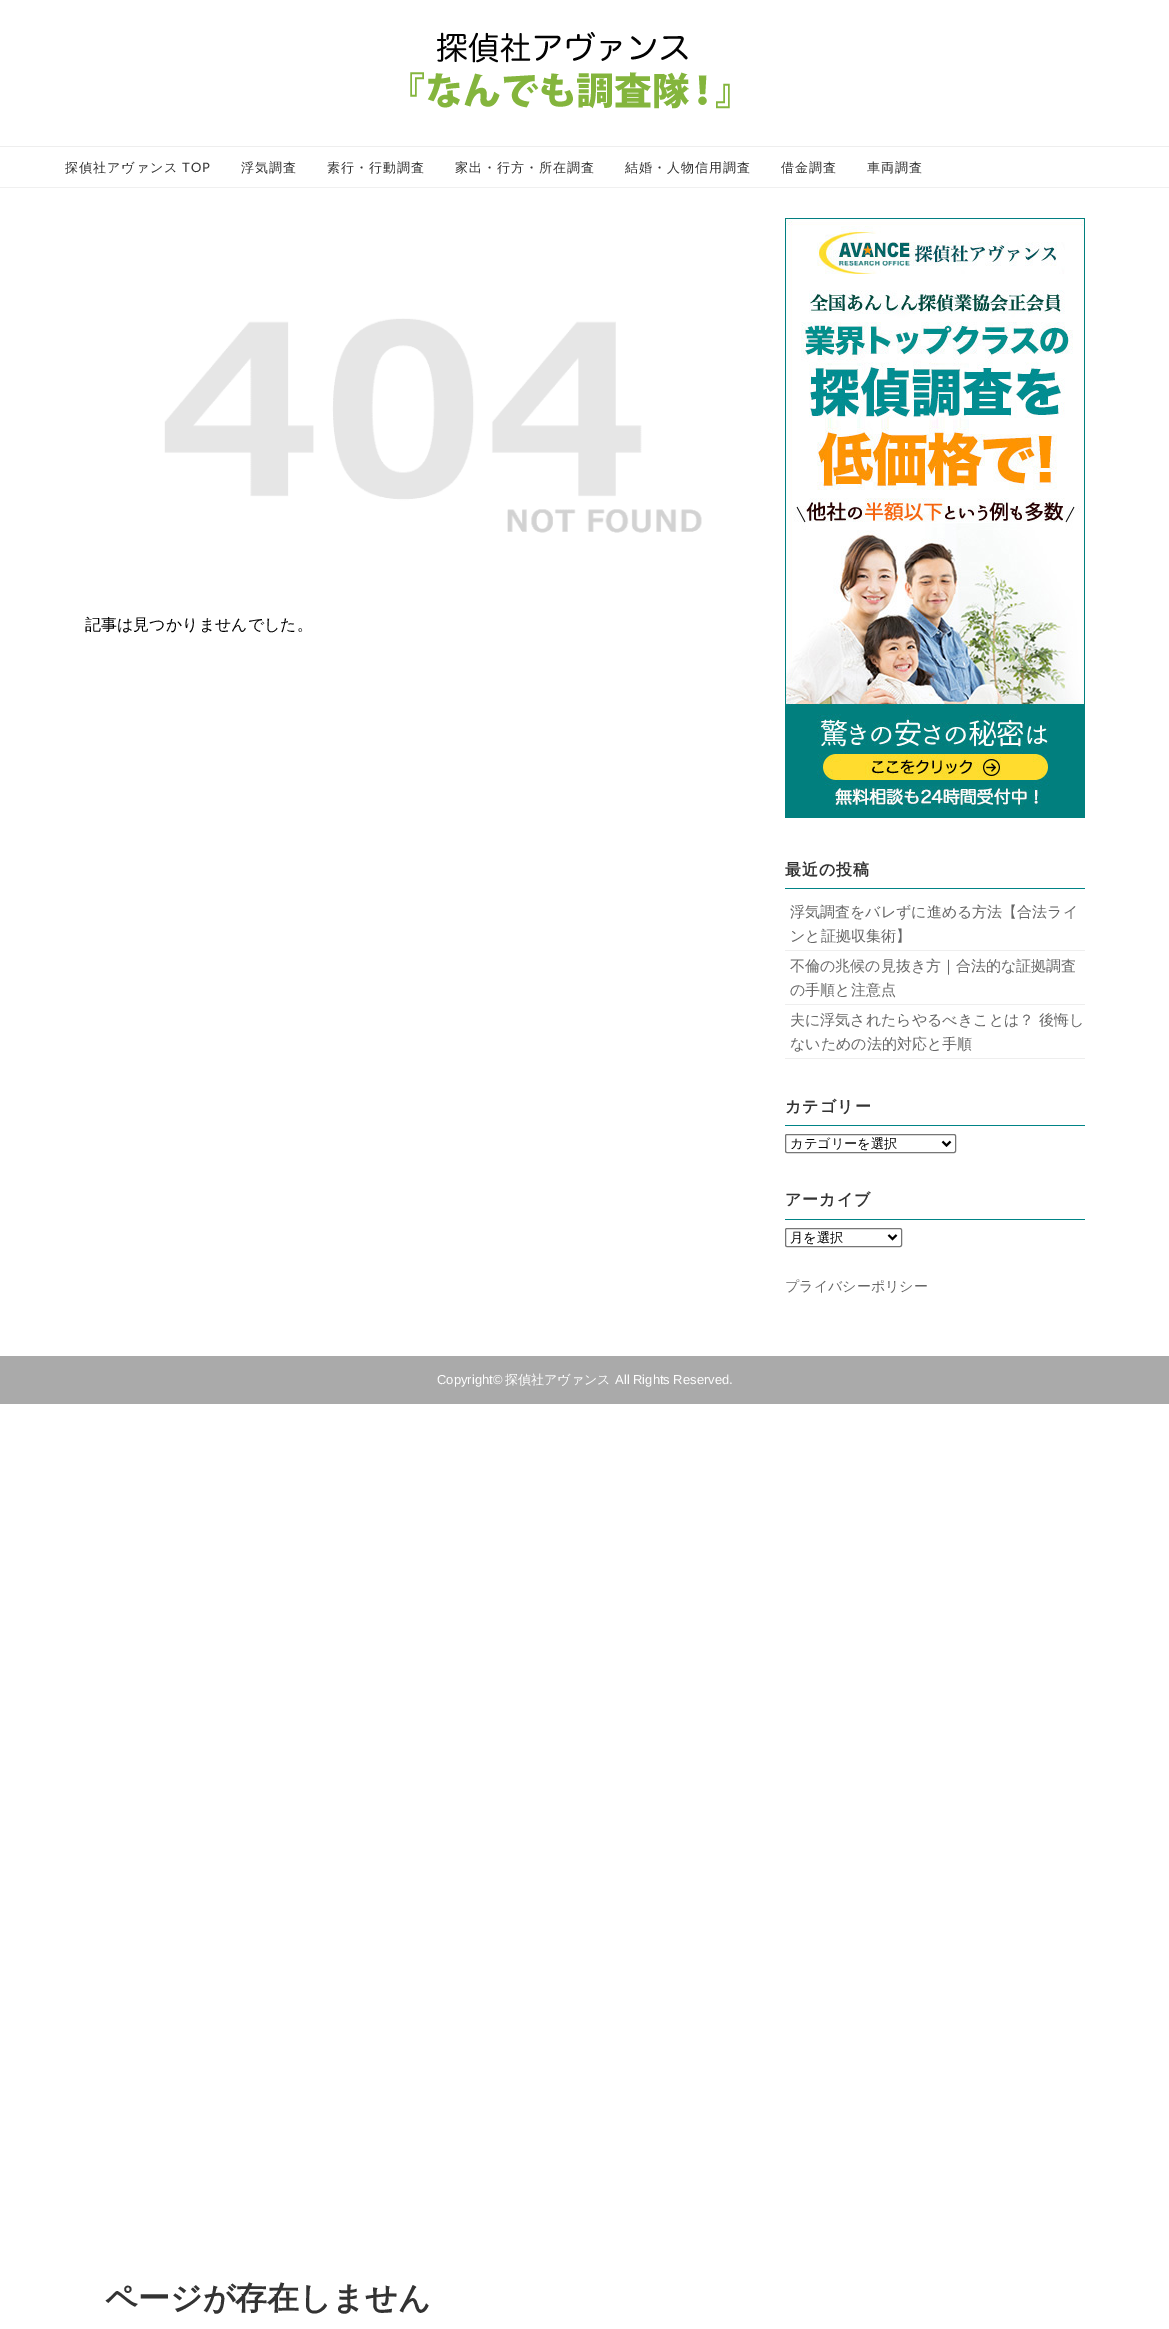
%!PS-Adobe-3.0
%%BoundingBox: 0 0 1169 2329
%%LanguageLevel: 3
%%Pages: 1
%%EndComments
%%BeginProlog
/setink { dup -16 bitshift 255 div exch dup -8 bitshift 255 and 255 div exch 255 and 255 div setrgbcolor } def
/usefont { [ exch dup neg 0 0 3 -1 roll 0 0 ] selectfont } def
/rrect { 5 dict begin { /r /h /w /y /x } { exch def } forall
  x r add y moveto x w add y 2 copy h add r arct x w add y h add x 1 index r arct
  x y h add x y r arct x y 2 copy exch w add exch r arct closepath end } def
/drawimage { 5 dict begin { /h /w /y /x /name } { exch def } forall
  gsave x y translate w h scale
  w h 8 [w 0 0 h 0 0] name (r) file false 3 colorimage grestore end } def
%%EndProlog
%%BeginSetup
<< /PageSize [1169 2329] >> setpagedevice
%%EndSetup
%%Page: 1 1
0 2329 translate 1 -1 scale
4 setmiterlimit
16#FFFFFF setink
0 0 1169 2329 rectfill
16#EEEEEE setink
0 146 1169 1 rectfill
(img1.raw) 410 32 320 77 drawimage
16#F0F0F0 setink
0 187 1169 1 rectfill
/WenQuanYiZenHei-Medium 13 usefont
16#333333 setink
65 172 moveto 1 0 (探偵社アヴァンス) ashow
/Lato-Regular 13 usefont
182 172 moveto 1 0 (TOP) ashow
/WenQuanYiZenHei-Medium 13 usefont
241 172 moveto 1 0 (浮気調査) ashow
327 172 moveto 1 0 (素行・行動調査) ashow
455 172 moveto 1 0 (家出・行方・所在調査) ashow
625 172 moveto 1 0 (結婚・人物信用調査) ashow
781 172 moveto 1 0 (借金調査) ashow
867 172 moveto 1 0 (車両調査) ashow
(img2.raw) 164 318 538 215 drawimage
/WenQuanYiZenHei-Medium 16 usefont
16#000000 setink
85 630 moveto (記事は見つかりませんでした。) show
/WenQuanYiZenHei-Bold 32 usefont
16#333333 setink
105 2309 moveto (ページが存在しません) show
(img3.raw) 785 218 300 600 drawimage
16#008486 setink
785 888 300 1 rectfill
/WenQuanYiZenHei-Bold 16 usefont
16#333333 setink
785 875 moveto 1 0 (最近の投稿) ashow
16#EEEEEE setink
785 950 300 1 rectfill
/WenQuanYiZenHei-Medium 15 usefont
16#666666 setink
790 917 moveto (浮気調査をバレずに進める方法【合法ライ) show
790 941 moveto (ンと証拠収集術】) show
16#EEEEEE setink
785 1004 300 1 rectfill
16#666666 setink
790 971 moveto (不倫の兆候の見抜き方｜合法的な証拠調査) show
790 995 moveto (の手順と注意点) show
16#EEEEEE setink
785 1058 300 1 rectfill
16#666666 setink
790 1025 moveto (夫に浮気されたらやるべきことは？ 後悔し) show
790 1049 moveto (ないための法的対応と手順) show
16#008486 setink
785 1125 300 1 rectfill
/WenQuanYiZenHei-Bold 16 usefont
16#333333 setink
785 1112 moveto 1 0 (カテゴリー) ashow
16#767676 setink
785.5 1134.5 170 18 1.5 rrect stroke
16#000000 setink
2 setlinewidth
942.5 1141.5 moveto 946.5 1145.5 lineto 950.5 1141.5 lineto stroke
/WenQuanYiZenHei-Medium 13.25 usefont
790 1148 moveto (カテゴリーを選択) show
16#008486 setink
785 1219 300 1 rectfill
/WenQuanYiZenHei-Bold 16 usefont
16#333333 setink
785 1205 moveto 1 0 (アーカイブ) ashow
16#767676 setink
1 setlinewidth
785.5 1228.5 116 18 1.5 rrect stroke
16#000000 setink
2 setlinewidth
888.5 1235 moveto 892.5 1239 lineto 896.5 1235 lineto stroke
/WenQuanYiZenHei-Medium 13.25 usefont
790 1242 moveto (月を選択) show
/WenQuanYiZenHei-Medium 14 usefont
16#666666 setink
785 1291 moveto (プライバシーポリシー) show
16#AAAAAA setink
0 1356 1169 48 rectfill
/LiberationSans-Regular 13 usefont
16#FFFFFF setink
437 1384 moveto (Copyright©) show
/WenQuanYiZenHei-Medium 13 usefont
505 1384 moveto (探偵社アヴァンス) show
/LiberationSans-Regular 13 usefont
615 1384 moveto (All Rights Reserved.) show
showpage
%%EOF
